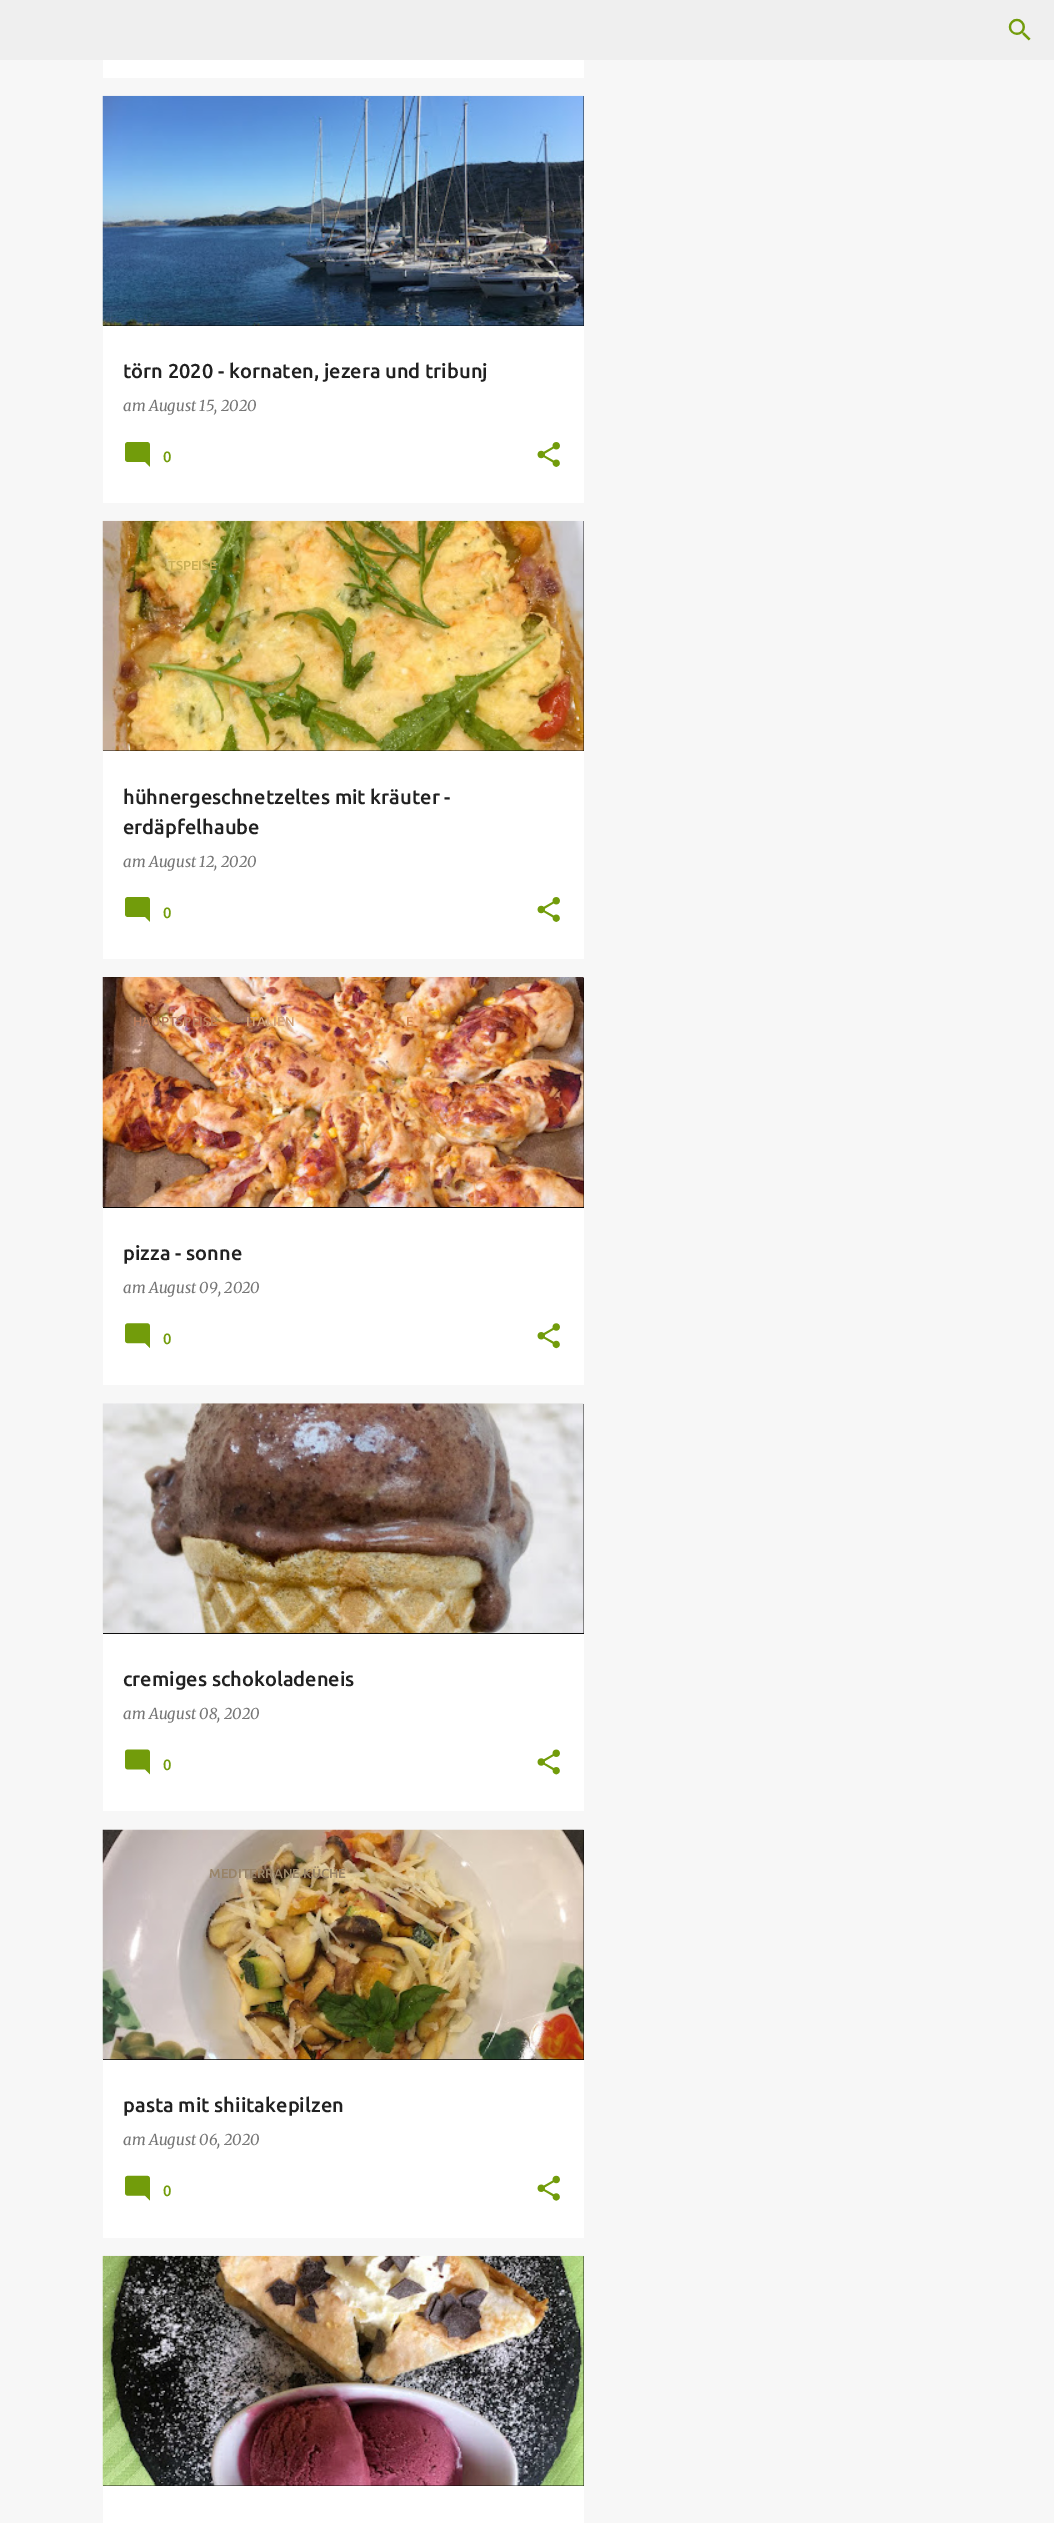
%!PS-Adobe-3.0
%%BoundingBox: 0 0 1054 2523
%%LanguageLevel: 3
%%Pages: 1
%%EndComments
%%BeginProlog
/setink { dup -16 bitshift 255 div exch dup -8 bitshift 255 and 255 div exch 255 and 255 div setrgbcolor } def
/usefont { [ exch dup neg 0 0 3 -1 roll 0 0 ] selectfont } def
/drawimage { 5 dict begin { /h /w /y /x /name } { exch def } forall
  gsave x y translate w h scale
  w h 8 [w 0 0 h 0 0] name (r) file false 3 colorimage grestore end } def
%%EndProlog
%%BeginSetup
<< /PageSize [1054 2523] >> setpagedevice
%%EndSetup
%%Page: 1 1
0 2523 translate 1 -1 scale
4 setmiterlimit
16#F7F7F7 setink
0 0 1054 2523 rectfill
16#EFEFEF setink
0 0 1054 60 rectfill
(img1.raw) 1008 18 23 23 drawimage
[
    [103 60 481 18 16#FFFFFF]
    [103 326 481 177 16#FFFFFF]
    [103 96 481 230 16#000000]
] { aload pop setink rectfill } forall
(img2.raw) 102 95 482 231 drawimage
/Ubuntu-Medium 20 usefont
16#212121 setink
123 378 moveto (törn 2020 - kornaten, jezera und tribunj) show
/Merriweather-Italic 15 usefont
16#757575 setink
123 411 moveto (am August 15, 2020) show
(img3.raw) 125 442 25 25 drawimage
/Ubuntu-Medium 15 usefont
16#729C0B setink
163 462 moveto (0) show
(img4.raw) 537 442 23 25 drawimage
16#FFFFFF setink
103 751 481 208 rectfill
16#000000 setink
103 521 481 230 rectfill
(img5.raw) 102 520 482 231 drawimage
/Ubuntu-Medium 13.1 usefont
16#C9AE55 setink
168 570 moveto (TSPEISE) show
/Merriweather-Italic 15 usefont
16#757575 setink
123 867 moveto (am August 12, 2020) show
/Ubuntu-Medium 20 usefont
16#212121 setink
123 804 moveto (hühnergeschnetzeltes mit kräuter -) show
123 834 moveto (erdäpfelhaube) show
(img3.raw) 125 897 25 25 drawimage
/Ubuntu-Medium 15 usefont
16#729C0B setink
163 918 moveto (0) show
(img4.raw) 537 897 23 25 drawimage
16#FFFFFF setink
103 1208 481 177 rectfill
16#000000 setink
103 978 481 230 rectfill
(img6.raw) 102 977 482 230 drawimage
/Ubuntu-Medium 13.1 usefont
16#BA7C5B setink
133 1026 moveto (HAUPTSPEISE) show
16#D3A176 setink
246 1026 moveto (ITALIEN) show
16#D58B51 setink
406 1026 moveto (E) show
/Merriweather-Italic 15 usefont
16#757575 setink
123 1293 moveto (am August 09, 2020) show
/Ubuntu-Medium 20 usefont
16#212121 setink
123 1260 moveto (pizza - sonne) show
(img7.raw) 125 1323 25 25 drawimage
/Ubuntu-Medium 15 usefont
16#729C0B setink
163 1344 moveto (0) show
(img8.raw) 537 1323 23 26 drawimage
16#FFFFFF setink
103 1634 481 177 rectfill
16#000000 setink
103 1404 481 230 rectfill
(img9.raw) 102 1403 482 231 drawimage
/Ubuntu-Medium 20 usefont
16#212121 setink
123 1686 moveto (cremiges schokoladeneis) show
/Merriweather-Italic 15 usefont
16#757575 setink
123 1719 moveto (am August 08, 2020) show
(img10.raw) 125 1749 25 26 drawimage
/Ubuntu-Medium 15 usefont
16#729C0B setink
163 1770 moveto (0) show
(img11.raw) 537 1749 23 26 drawimage
16#FFFFFF setink
103 2060 481 178 rectfill
16#000000 setink
103 1830 481 230 rectfill
(img12.raw) 102 1829 482 231 drawimage
/Ubuntu-Medium 13.1 usefont
16#998468 setink
209 1878 moveto (MEDITERRANE KÜCHE) show
/Merriweather-Italic 15 usefont
16#757575 setink
123 2145 moveto (am August 06, 2020) show
/Ubuntu-Medium 20 usefont
16#212121 setink
123 2112 moveto (pasta mit shiitakepilzen) show
(img13.raw) 125 2175 25 26 drawimage
/Ubuntu-Medium 15 usefont
16#729C0B setink
163 2196 moveto (0) show
(img14.raw) 537 2175 23 26 drawimage
16#FFFFFF setink
103 2486 481 37 rectfill
16#000000 setink
103 2256 481 230 rectfill
(img15.raw) 102 2255 482 231 drawimage
/Ubuntu-Medium 13.1 usefont
16#474747 setink
133 2304 moveto (DESSERT) show
showpage
%%EOF
